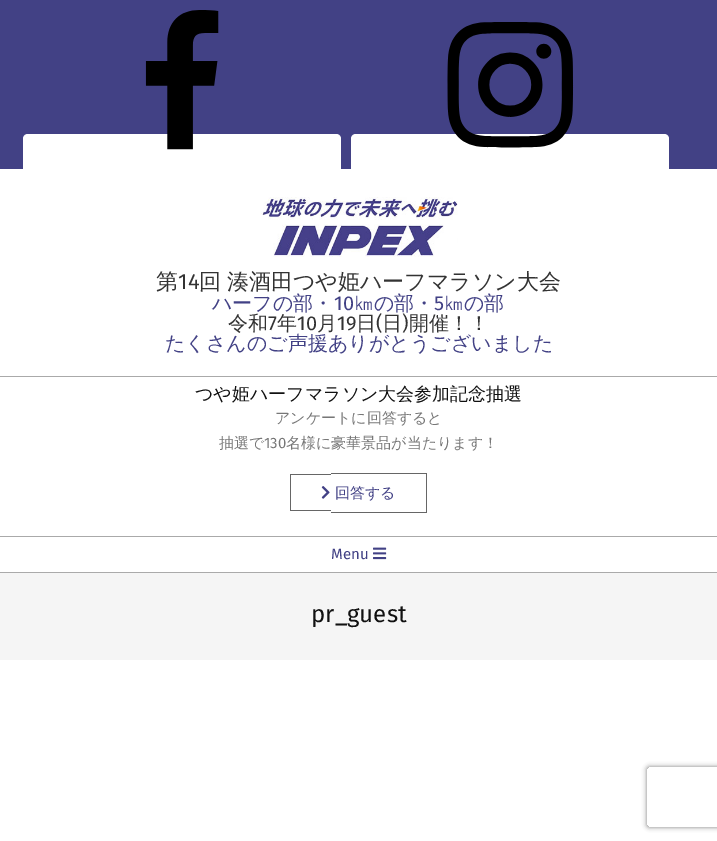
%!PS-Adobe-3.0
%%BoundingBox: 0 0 717 841
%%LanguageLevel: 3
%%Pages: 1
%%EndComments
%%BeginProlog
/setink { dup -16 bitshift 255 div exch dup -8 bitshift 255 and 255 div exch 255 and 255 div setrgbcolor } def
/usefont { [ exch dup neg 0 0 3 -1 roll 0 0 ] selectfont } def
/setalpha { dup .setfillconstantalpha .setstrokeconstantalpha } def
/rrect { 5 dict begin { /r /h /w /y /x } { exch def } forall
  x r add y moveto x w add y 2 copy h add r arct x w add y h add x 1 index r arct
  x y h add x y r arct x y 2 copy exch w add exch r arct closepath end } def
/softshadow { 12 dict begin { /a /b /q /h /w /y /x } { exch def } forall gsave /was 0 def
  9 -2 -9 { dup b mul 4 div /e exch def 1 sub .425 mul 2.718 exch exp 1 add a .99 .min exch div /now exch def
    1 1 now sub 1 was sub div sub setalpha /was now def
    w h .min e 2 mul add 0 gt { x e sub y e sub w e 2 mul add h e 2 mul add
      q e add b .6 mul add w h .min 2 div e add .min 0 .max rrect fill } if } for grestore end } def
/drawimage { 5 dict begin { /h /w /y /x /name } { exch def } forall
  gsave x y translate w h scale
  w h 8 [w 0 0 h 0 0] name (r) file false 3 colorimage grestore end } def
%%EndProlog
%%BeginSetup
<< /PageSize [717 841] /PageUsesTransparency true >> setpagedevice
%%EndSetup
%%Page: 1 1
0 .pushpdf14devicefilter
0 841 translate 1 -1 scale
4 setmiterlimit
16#FFFFFF setink
0 0 717 841 rectfill
16#424185 setink
0 0 717 169 rectfill
16#FFFFFF setink
28 134 moveto 336 134 lineto 339 134 341 136 341 139 curveto 341 169 lineto 23 169 lineto 23 139 lineto 23 136 25 134 28 134 curveto closepath fill
(img1.raw) 145 10 74 140 drawimage
356 134 moveto 664 134 lineto 667 134 669 136 669 139 curveto 669 169 lineto 351 169 lineto 351 139 lineto 351 136 353 134 356 134 curveto closepath fill
(img2.raw) 447 22 127 126 drawimage
16#AAAAAA setink
0 536 717 1 rectfill
(img3.raw) 260 197 198 60 drawimage
/WenQuanYiZenHei-Medium 22 usefont
16#333333 setink
156 289 moveto (第) show
/FiraSans-Regular 22 usefont
178 289 moveto (14) show
/WenQuanYiZenHei-Medium 22 usefont
199 289 moveto -1 0 32 (回 湊酒田つや姫ハーフマラソン大会) widthshow
/WenQuanYiZenHei-Medium 20 usefont
16#424185 setink
212 310 moveto (ハーフの部・) show
/FiraSans-Regular 20 usefont
334 310 moveto (10) show
/WenQuanYiZenHei-Medium 20 usefont
354 310 moveto (㎞の部・) show
/FiraSans-Regular 20 usefont
434 310 moveto (5) show
/WenQuanYiZenHei-Medium 20 usefont
444 310 moveto (㎞の部) show
16#333333 setink
228 330 moveto (令和) show
/FiraSans-Regular 20 usefont
268 330 moveto (7) show
/WenQuanYiZenHei-Medium 20 usefont
277 330 moveto (年) show
/FiraSans-Regular 20 usefont
297 330 moveto (10) show
/WenQuanYiZenHei-Medium 20 usefont
317 330 moveto (月) show
/FiraSans-Regular 20 usefont
337 330 moveto (19) show
/WenQuanYiZenHei-Medium 20 usefont
356 330 moveto (日) show
/FiraSans-Regular 20 usefont
376 330 moveto (\() show
/WenQuanYiZenHei-Medium 20 usefont
382 330 moveto (日) show
/FiraSans-Regular 20 usefont
402 330 moveto (\)) show
/WenQuanYiZenHei-Medium 20 usefont
409 330 moveto (開催！！) show
16#424185 setink
165 350 moveto (たくさんのご声援ありがとうございました) show
16#AAAAAA setink
0 376 717 1 rectfill
/WenQuanYiZenHei-Medium 18 usefont
16#111111 setink
195 400 moveto (つや姫ハーフマラソン大会参加記念抽選) show
/WenQuanYiZenHei-Medium 15 usefont
16#777777 setink
275 423 moveto (アンケートに回答すると) show
219 448 moveto (抽選で) show
/FiraSans-Regular 15 usefont
264 448 moveto (130) show
/WenQuanYiZenHei-Medium 15 usefont
286 448 moveto (名様に豪華景品が当たります！) show
[
    [290 474 41 1 16#666666]
    [290 510 41 1 16#666666]
    [290 474 1 37 16#666666]
    [331 473 96 1 16#666666]
    [426 473 1 40 16#666666]
    [331 512 96 1 16#666666]
] { aload pop setink rectfill } forall
(img4.raw) 321 486 9 13 drawimage
16#424185 setink
335 498 moveto (回答する) show
16#AAAAAA setink
0 572 717 1 rectfill
/FiraSans-Regular 15 usefont
16#424185 setink
331 559 moveto (Menu) show
(img5.raw) 373 547 14 13 drawimage
16#F5F5F5 setink
0 573 717 87 rectfill
/FiraSans-Regular 24 usefont
16#111111 setink
311 622 moveto (pr_guest) show
gsave
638 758 moveto 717 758 lineto 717 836 lineto 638 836 lineto closepath 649 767 moveto 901 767 lineto 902 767 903 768 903 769 curveto 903 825 lineto 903 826 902 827 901 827 curveto 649 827 lineto 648 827 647 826 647 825 curveto 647 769 lineto 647 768 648 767 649 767 curveto closepath eoclip newpath
16#808080 setink
647 767 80 60 2 2.5 1 softshadow
grestore
.poppdf14devicefilter showpage
%%EOF
